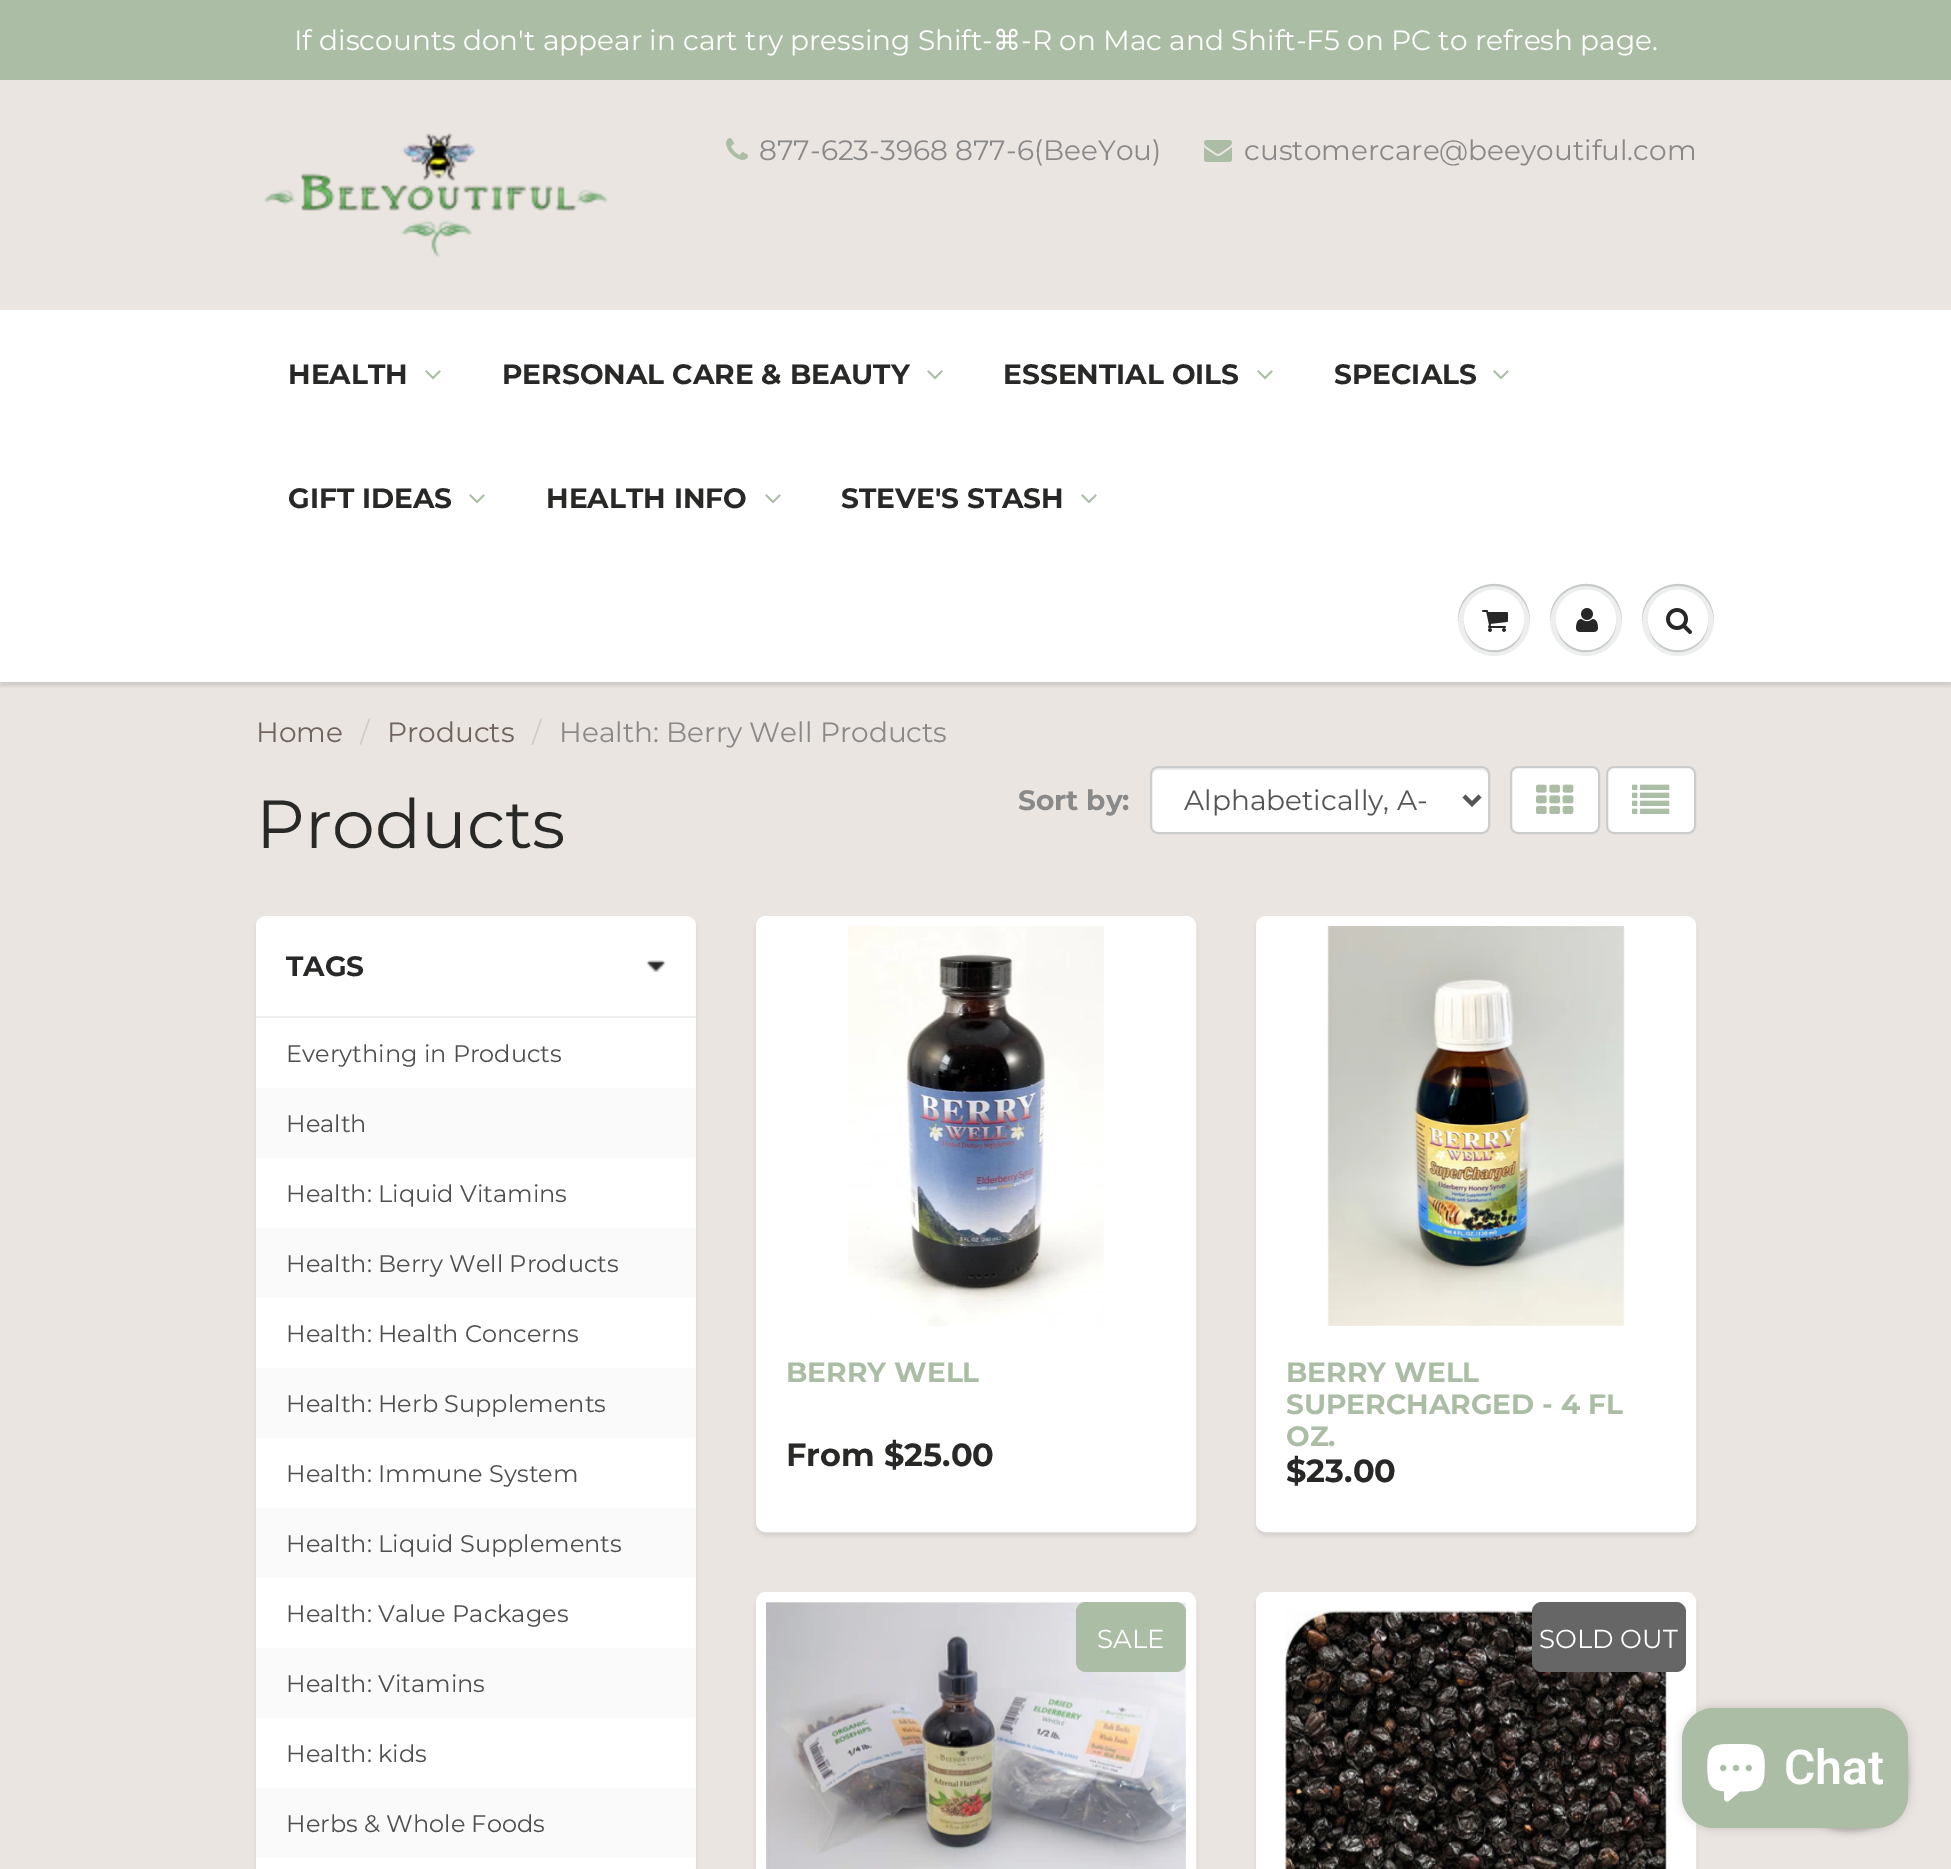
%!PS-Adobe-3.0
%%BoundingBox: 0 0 1951 1869
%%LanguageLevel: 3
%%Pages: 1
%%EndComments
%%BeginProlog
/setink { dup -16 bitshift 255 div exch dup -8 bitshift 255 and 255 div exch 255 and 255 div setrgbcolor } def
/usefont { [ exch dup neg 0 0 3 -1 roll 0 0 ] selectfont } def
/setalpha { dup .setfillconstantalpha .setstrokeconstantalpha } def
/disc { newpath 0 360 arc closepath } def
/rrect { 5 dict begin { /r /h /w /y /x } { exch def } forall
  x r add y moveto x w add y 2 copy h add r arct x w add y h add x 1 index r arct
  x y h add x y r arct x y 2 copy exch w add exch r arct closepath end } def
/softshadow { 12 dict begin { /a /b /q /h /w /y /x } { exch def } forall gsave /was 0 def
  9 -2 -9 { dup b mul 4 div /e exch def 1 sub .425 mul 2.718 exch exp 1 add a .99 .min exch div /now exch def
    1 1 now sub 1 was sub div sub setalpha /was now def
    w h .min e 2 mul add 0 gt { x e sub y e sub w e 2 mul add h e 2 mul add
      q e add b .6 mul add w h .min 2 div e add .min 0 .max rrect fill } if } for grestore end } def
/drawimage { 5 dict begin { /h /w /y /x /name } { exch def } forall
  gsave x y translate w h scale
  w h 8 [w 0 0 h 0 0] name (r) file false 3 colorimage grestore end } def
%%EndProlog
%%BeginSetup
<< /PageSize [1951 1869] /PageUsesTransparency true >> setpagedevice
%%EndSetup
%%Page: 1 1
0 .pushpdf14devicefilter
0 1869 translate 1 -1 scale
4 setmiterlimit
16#FFFFFF setink
0 0 1951 1869 rectfill
16#ABBDA5 setink
0 0 1951 80 rectfill
/Montserrat-Regular 28 usefont
16#FFFFFF setink
294 50 moveto (If discounts don't appear in cart try pressing Shift-) show
/DejaVuSans-Regular 28 usefont
993 50 moveto (⌘) show
/Montserrat-Regular 28 usefont
1021 50 moveto (-R on Mac and Shift-F5 on PC to refresh page.) show
16#EBE5E2 setink
0 80 1951 228 rectfill
(img1.raw) 264 133 344 124 drawimage
(img2.raw) 726 138 22 22 drawimage
16#898989 setink
759 160 moveto (877-623-3968 877-6\(BeeYou\)) show
(img3.raw) 1204 140 28 22 drawimage
1244 160 moveto (customercare@beeyoutiful.com) show
16#EBE5E2 setink
0 682 1951 1187 rectfill
gsave
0 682 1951 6 rectclip
16#0B191C setink
0 312 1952 374 0 2 0.12 softshadow
grestore
0 308 1951 2 rectfill
/Montserrat-Bold 28 usefont
16#282827 setink
288 384 moveto (HEALTH) show
(img4.raw) 425 370 16 10 drawimage
502 384 moveto (PERSONAL CARE & BEAUTY) show
(img4.raw) 927 370 16 10 drawimage
1003 384 moveto (ESSENTIAL OILS) show
(img4.raw) 1257 370 16 10 drawimage
1334 384 moveto (SPECIALS) show
(img4.raw) 1493 370 16 10 drawimage
288 508 moveto (GIFT IDEAS) show
(img4.raw) 469 494 16 10 drawimage
546 508 moveto (HEALTH INFO) show
(img4.raw) 765 494 16 10 drawimage
841 508 moveto (STEVE'S STASH) show
(img4.raw) 1081 494 16 10 drawimage
16#EDEFEF setink
1494 620 36 disc fill
16#C9CBCB setink
1524 621 moveto 1523 637 1510 650 1494 650 curveto 1478 650 1465 637 1464 621 curveto 1463 651 1502 664 1519 639 curveto 1522 634 1524 627 1524 621 curveto closepath fill
1494 586 moveto 1514 586 1529 601 1530 621 curveto 1530 614 1528 606 1524 600 curveto 1504 570 1457 585 1458 621 curveto 1459 601 1474 586 1494 586 curveto closepath fill
16#FFFFFF setink
1494 620 30 disc fill
1494 592 moveto 1511 592 1523 604 1524 621 curveto 1524 615 1522 608 1519 603 curveto 1502 578 1463 591 1464 621 curveto 1465 604 1477 592 1494 592 curveto closepath fill
(img5.raw) 1482 610 26 22 drawimage
16#EDEFEF setink
1586 620 36 disc fill
16#C9CBCB setink
1616 621 moveto 1615 637 1602 650 1586 650 curveto 1570 650 1557 637 1556 621 curveto 1556 627 1558 634 1561 639 curveto 1578 664 1617 651 1616 621 curveto closepath fill
1586 586 moveto 1606 586 1621 601 1622 621 curveto 1622 614 1620 606 1616 600 curveto 1596 570 1549 585 1550 621 curveto 1551 601 1566 586 1586 586 curveto closepath fill
16#FFFFFF setink
1586 620 30 disc fill
1586 592 moveto 1603 592 1615 604 1616 621 curveto 1616 615 1614 608 1611 603 curveto 1594 578 1555 591 1556 621 curveto 1557 604 1569 592 1586 592 curveto closepath fill
(img6.raw) 1576 608 22 24 drawimage
16#EDEFEF setink
1678 620 36 disc fill
16#C9CBCB setink
1708 621 moveto 1707 637 1694 650 1678 650 curveto 1662 650 1649 637 1648 621 curveto 1648 627 1650 634 1653 639 curveto 1670 664 1709 651 1708 621 curveto closepath fill
1678 586 moveto 1698 586 1713 601 1714 621 curveto 1714 614 1712 606 1708 600 curveto 1688 570 1641 585 1642 621 curveto 1643 601 1658 586 1678 586 curveto closepath fill
16#FFFFFF setink
1678 620 30 disc fill
1678 592 moveto 1695 592 1707 604 1708 621 curveto 1708 615 1706 608 1703 603 curveto 1686 578 1647 591 1648 621 curveto 1649 604 1661 592 1678 592 curveto closepath fill
(img7.raw) 1666 608 26 26 drawimage
/Montserrat-Regular 28 usefont
16#70635D setink
256 742 moveto (Home) show
16#CCCCCC setink
360 742 moveto (/) show
16#70635D setink
387 742 moveto (Products) show
16#CCCCCC setink
532 742 moveto (/) show
16#898989 setink
559 742 moveto (Health: Berry Well Products) show
16#0B191C setink
256 920 440 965 10 2 0.1 softshadow
16#FFFFFF setink
256 916 440 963 10 rrect fill
16#EFEFEF setink
256 1016 440 2 rectfill
(img8.raw) 646 960 20 12 drawimage
/Montserrat-Bold 28 usefont
16#282827 setink
286 976 moveto (TAGS) show
/Montserrat-Regular 24 usefont
16#4E4E4E setink
286 1062 moveto (Everything in Products) show
16#FAFAFA setink
256 1088 440 70 rectfill
16#4E4E4E setink
286 1132 moveto (Health) show
286 1202 moveto (Health: Liquid Vitamins) show
16#FAFAFA setink
256 1228 440 70 rectfill
16#4E4E4E setink
286 1272 moveto (Health: Berry Well Products) show
286 1342 moveto (Health: Health Concerns) show
16#FAFAFA setink
256 1368 440 70 rectfill
16#4E4E4E setink
286 1412 moveto (Health: Herb Supplements) show
286 1482 moveto (Health: Immune System) show
16#FAFAFA setink
256 1508 440 70 rectfill
16#4E4E4E setink
286 1552 moveto (Health: Liquid Supplements) show
286 1622 moveto (Health: Value Packages) show
16#FAFAFA setink
256 1648 440 70 rectfill
16#4E4E4E setink
286 1692 moveto (Health: Vitamins) show
286 1762 moveto (Health: kids) show
16#FAFAFA setink
256 1788 440 70 rectfill
16#4E4E4E setink
286 1832 moveto (Herbs & Whole Foods) show
/Montserrat-Bold 28 usefont
16#898989 setink
1018 810 moveto (Sort by:) show
16#FFFFFF setink
1150 766 340 68 8 rrect fill
16#ECECEC setink
1158 770 moveto 1482 770 lineto 1485 770 1488 773 1488 776 curveto 1488 774 lineto 1488 771 1485 768 1482 768 curveto 1158 768 lineto 1155 768 1152 771 1152 774 curveto 1152 776 lineto 1152 773 1155 770 1158 770 curveto closepath fill
16#CCCCCC setink
2 setlinewidth
1151 767 338 66 7 rrect stroke
16#555555 setink
4 setlinewidth
1464 796 moveto 1472 804 lineto 1480 796 lineto stroke
/Montserrat-Regular 28 usefont
1184 810 moveto (Alphabetically, A-) show
16#FFFFFF setink
1511 767 88 66 7 rrect gsave fill grestore
16#CCCCCC setink
2 setlinewidth
stroke
(img9.raw) 1536 784 38 30 drawimage
16#FFFFFF setink
1607 767 88 66 7 rrect gsave fill grestore
16#CCCCCC setink
stroke
(img10.raw) 1632 784 38 30 drawimage
16#0B191C setink
756 920 440 616 10 2 0.1 softshadow
16#FFFFFF setink
761 921 430 606 5 rrect gsave fill grestore
10 setlinewidth
stroke
(img11.raw) 848 926 256 400 drawimage
/Montserrat-Bold 28 usefont
16#ABBDA5 setink
786 1382 moveto (BERRY WELL) show
/Montserrat-Bold 32 usefont
16#282827 setink
786 1466 moveto (From $25.00) show
16#0B191C setink
1256 920 440 616 10 2 0.1 softshadow
16#FFFFFF setink
1261 921 430 606 5 rrect gsave fill grestore
stroke
(img12.raw) 1327 926 298 400 drawimage
/Montserrat-Bold 28 usefont
16#ABBDA5 setink
[
    [(BERRY WELL) 1286 1382]
    [(SUPERCHARGED - 4 FL) 1286 1414]
    [(OZ.) 1286 1446]
] { aload pop moveto show } forall
/Montserrat-Bold 32 usefont
16#282827 setink
1286 1482 moveto ($23.00) show
16#0B191C setink
756 1596 440 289 10 2 0.1 softshadow
16#FFFFFF setink
761 1597 430 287 5 rrect stroke
(img13.raw) 766 1602 420 267 drawimage
16#ABBDA5 setink
1076 1602 110 70 10 rrect fill
/Montserrat-Regular 26 usefont
16#FFFFFF setink
1097 1648 moveto (SALE) show
16#0B191C setink
1256 1596 440 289 10 2 0.1 softshadow
16#FFFFFF setink
1261 1597 430 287 5 rrect gsave fill grestore
stroke
(img14.raw) 1285 1610 384 259 drawimage
16#666666 setink
1532 1602 154 70 10 rrect fill
16#FFFFFF setink
1539 1648 moveto (SOLD OUT) show
/Montserrat-Regular 68 usefont
16#282827 setink
256 848 moveto (Products) show
16#0C0B0B setink
1792 1716 116 116 58 3 0.2 softshadow
16#000000 setink
1682 1708 226 120 32 5 0.15 softshadow
16#ABBDA5 setink
1682 1708 226 120 32 rrect fill
(img15.raw) 1707 1744 58 58 drawimage
/Roboto-SemiBold 48 usefont
16#FFFFFF setink
1784 1784 moveto (Chat) show
.poppdf14devicefilter showpage
%%EOF
